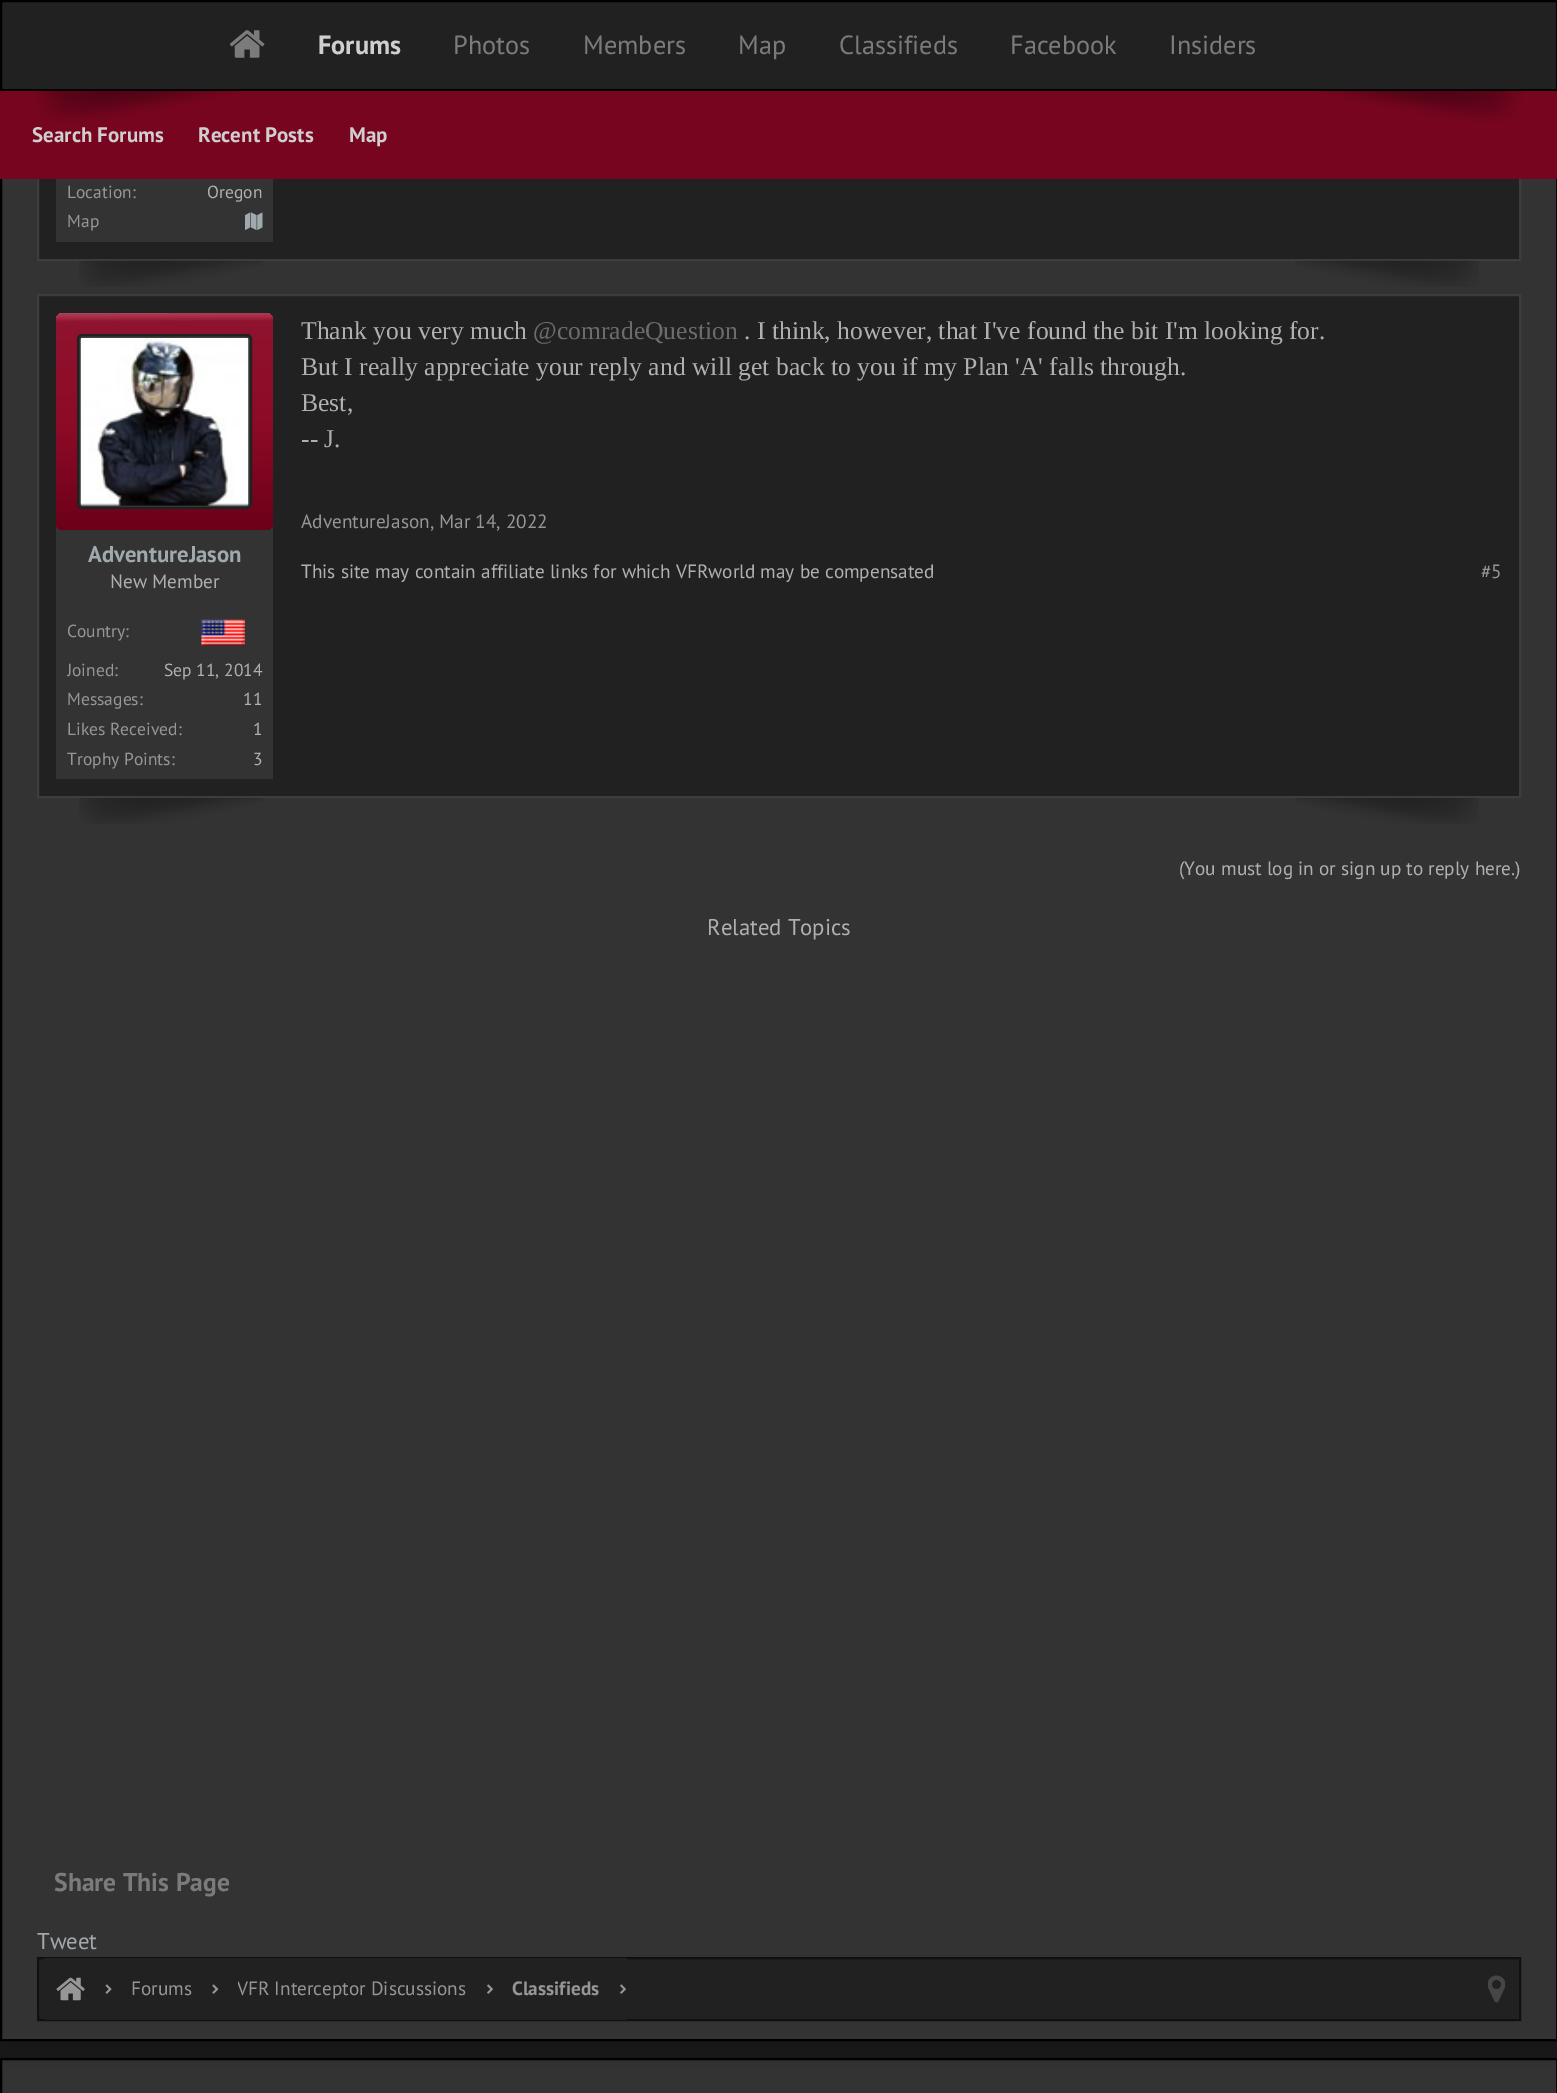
%!PS-Adobe-3.0
%%BoundingBox: 0 0 1557 2093
%%LanguageLevel: 3
%%Pages: 1
%%EndComments
%%BeginProlog
/setink { dup -16 bitshift 255 div exch dup -8 bitshift 255 and 255 div exch 255 and 255 div setrgbcolor } def
/usefont { [ exch dup neg 0 0 3 -1 roll 0 0 ] selectfont } def
/setalpha { dup .setfillconstantalpha .setstrokeconstantalpha } def
/rrect { 5 dict begin { /r /h /w /y /x } { exch def } forall
  x r add y moveto x w add y 2 copy h add r arct x w add y h add x 1 index r arct
  x y h add x y r arct x y 2 copy exch w add exch r arct closepath end } def
/softshadow { 12 dict begin { /a /b /q /h /w /y /x } { exch def } forall gsave /was 0 def
  9 -2 -9 { dup b mul 4 div /e exch def 1 sub .425 mul 2.718 exch exp 1 add a .99 .min exch div /now exch def
    1 1 now sub 1 was sub div sub setalpha /was now def
    w h .min e 2 mul add 0 gt { x e sub y e sub w e 2 mul add h e 2 mul add
      q e add b .6 mul add w h .min 2 div e add .min 0 .max rrect fill } if } for grestore end } def
/drawimage { 5 dict begin { /h /w /y /x /name } { exch def } forall
  gsave x y translate w h scale
  w h 8 [w 0 0 h 0 0] name (r) file false 3 colorimage grestore end } def
%%EndProlog
%%BeginSetup
<< /PageSize [1557 2093] /PageUsesTransparency true >> setpagedevice
%%EndSetup
%%Page: 1 1
0 .pushpdf14devicefilter
0 2093 translate 1 -1 scale
4 setmiterlimit
16#212121 setink
0 0 1557 2093 rectfill
16#000000 setink
-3 2055 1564 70 0 10.5 0.5 softshadow
16#333333 setink
1 2059 moveto 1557 2059 lineto 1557 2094 lineto 1 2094 lineto closepath gsave fill grestore
16#000000 setink
2 setlinewidth
stroke
-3 -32 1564 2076 0 10.5 0.5 softshadow
16#333333 setink
2 179 1554 1860 rectfill
16#000000 setink
1 -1 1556 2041 rectstroke
16#212121 setink
39 179 1480 80 rectfill
16#3D3D3D setink
38 -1 1482 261 rectstroke
16#212121 setink
1 1 moveto 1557 1 lineto 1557 90 lineto 1 90 lineto closepath gsave fill grestore
16#000000 setink
stroke
(img1.raw) 229 30 36 28 drawimage
/PTSans-Bold 26.25 usefont
16#CFCFCF setink
318 54 moveto (Forums) show
16#780520 setink
0 91 1557 88 rectfill
/PTSans-Bold 21 usefont
16#CFCFCF setink
[
    [(Search Forums) 32 142]
    [(Recent Posts) 198 142]
    [(Map) 349 142]
] { aload pop moveto show } forall
/PTSans-Regular 26.25 usefont
16#7B7B7B setink
[
    [(Photos) 453 54]
    [(Members) 583 54]
    [(Map) 738 54]
    [(Classifieds) 839 54]
    [(Facebook) 1010 54]
    [(Insiders) 1169 54]
] { aload pop moveto show } forall
(img2.raw) 35 91 204 32 drawimage
(img3.raw) 1318 91 205 32 drawimage
16#333333 setink
56 179 217 63 rectfill
/PTSans-Regular 17.5 usefont
16#969696 setink
67 198 moveto (Location:) show
16#B0B0B0 setink
207 198 moveto (Oregon) show
16#969696 setink
67 227 moveto (Map) show
(img4.raw) 245 212 18 18 drawimage
(img5.raw) 79 260 184 27 drawimage
(img6.raw) 1295 260 184 27 drawimage
16#212121 setink
38 295 moveto 1520 295 lineto 1520 797 lineto 38 797 lineto closepath gsave fill grestore
16#3D3D3D setink
stroke
/LiberationSerif-Regular 25.65 usefont
16#B0B0B0 setink
301 339 moveto (Thank you very much) show
16#6C6C6C setink
533 339 moveto (@comradeQuestion) show
16#B0B0B0 setink
[
    [(. I think, however, that I've found the bit I'm looking for.) 744 339]
    [(But I really appreciate your reply and will get back to you if my Plan 'A' falls through.) 301 375]
    [(Best,) 301 411]
    [(-- J.) 301 447]
] { aload pop moveto show } forall
/PTSans-Regular 19.25 usefont
16#969696 setink
301 528 moveto (AdventureJason, Mar 14, 2022) show
16#B0B0B0 setink
301 578 moveto (This site may contain affiliate links for which VFRworld may be compensated) show
16#969696 setink
1481 578 moveto (#5) show
16#333333 setink
56 313 217 466 9 rrect fill
gsave 56 313 217 217 7 rrect clip newpath
<< /ShadingType 2 /ColorSpace /DeviceRGB /Coords [164 313 165 530] /Extend [true true] /Function << /FunctionType 3 /Domain [0 1] /Functions [<< /FunctionType 2 /Domain [0 1] /C0 [0.647 0.263 0.349] /C1 [0.659 0.157 0.267] /N 1 >> << /FunctionType 2 /Domain [0 1] /C0 [0.659 0.157 0.267] /C1 [0.557 0.075 0.18] /N 1 >> << /FunctionType 2 /Domain [0 1] /C0 [0.557 0.075 0.18] /C1 [0.557 0.043 0.153] /N 1 >> << /FunctionType 2 /Domain [0 1] /C0 [0.557 0.043 0.153] /C1 [0.427 0 0.098] /N 1 >>] /Bounds [0.02 0.04 0.5] /Encode [0 1 0 1 0 1 0 1] >> >> shfill grestore
16#353535 setink
78 335 173 173 4 rrect gsave fill grestore
16#212121 setink
stroke
(img7.raw) 80 337 169 169 drawimage
/PTSans-Bold 22.75 usefont
16#A0A9AE setink
88 562 moveto (AdventureJason) show
/PTSans-Regular 19.25 usefont
16#B0B0B0 setink
110 588 moveto (New Member) show
16#333333 setink
56 771 217 8 rectfill
/PTSans-Regular 17.5 usefont
16#969696 setink
67 637 moveto (Country:) show
(img8.raw) 201 619 44 27 drawimage
gsave
67 656 196 27 rectclip
67 676 moveto (Joined:) show
grestore
16#B0B0B0 setink
164 676 moveto (Sep 11, 2014) show
16#969696 setink
67 705 moveto (Messages:) show
16#B0B0B0 setink
243 705 moveto (11) show
16#969696 setink
67 735 moveto (Likes Received:) show
16#B0B0B0 setink
253 735 moveto (1) show
16#969696 setink
67 765 moveto (Trophy Points:) show
16#B0B0B0 setink
253 765 moveto (3) show
(img9.raw) 79 798 184 26 drawimage
(img10.raw) 1295 798 184 26 drawimage
/PTSans-Regular 19.25 usefont
1179 875 moveto (\(You must log in or sign up to reply here.\)) show
/PTSans-Regular 22.75 usefont
707 935 moveto (Related Topics) show
/PTSans-Bold 25.65 usefont
16#7B7B7B setink
54 1891 moveto (Share This Page) show
/PTSans-Regular 22.75 usefont
16#A0A9AE setink
37 1949 moveto (Tweet) show
16#212121 setink
38 1958 moveto 1520 1958 lineto 1520 2020 lineto 38 2020 lineto closepath gsave fill grestore
16#101010 setink
stroke
16#212121 setink
48 1958 moveto 114 1958 lineto 114 2020 lineto 48 2020 lineto 43 2020 39 2016 39 2011 curveto 39 1967 lineto 39 1962 43 1958 48 1958 curveto closepath fill
(img11.raw) 56 1977 29 24 drawimage
(img12.raw) 105 1984 7 10 drawimage
114 1958 513 62 rectfill
/PTSans-Regular 19.25 usefont
16#969696 setink
131 1995 moveto (Forums) show
(img13.raw) 212 1984 7 10 drawimage
gsave
238 1958 228 62 rectclip
237 1995 moveto (VFR Interceptor Discussions) show
grestore
(img14.raw) 487 1984 6 10 drawimage
/PTSans-Bold 19.25 usefont
512 1995 moveto (Classifieds) show
(img15.raw) 620 1984 6 10 drawimage
(img16.raw) 1488 1975 17 28 drawimage
.poppdf14devicefilter showpage
%%EOF
